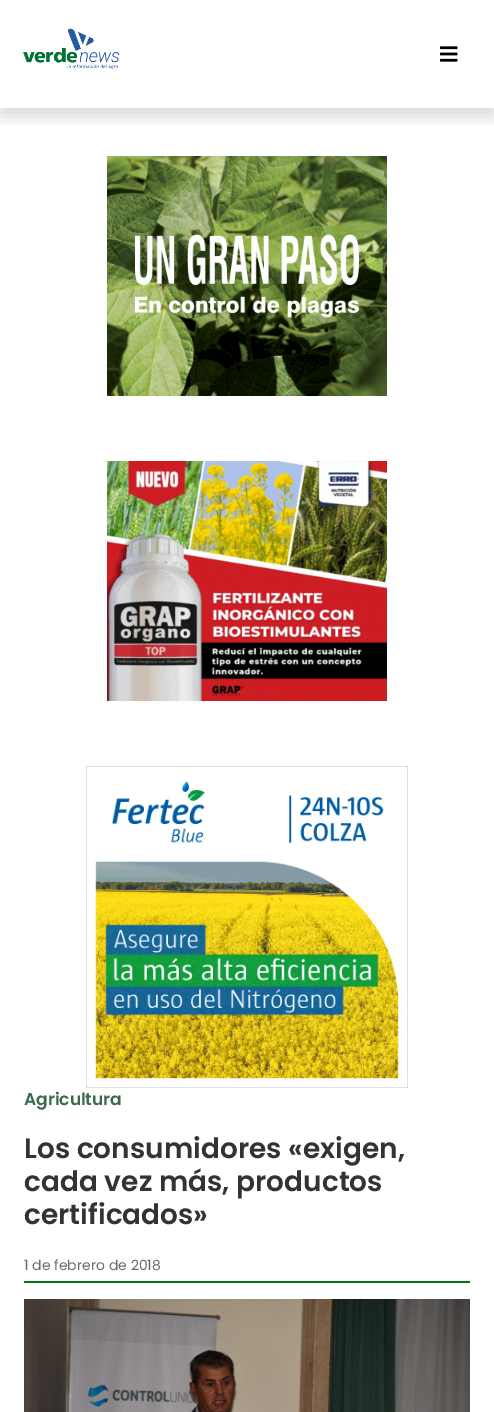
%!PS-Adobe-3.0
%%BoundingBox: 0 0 494 1412
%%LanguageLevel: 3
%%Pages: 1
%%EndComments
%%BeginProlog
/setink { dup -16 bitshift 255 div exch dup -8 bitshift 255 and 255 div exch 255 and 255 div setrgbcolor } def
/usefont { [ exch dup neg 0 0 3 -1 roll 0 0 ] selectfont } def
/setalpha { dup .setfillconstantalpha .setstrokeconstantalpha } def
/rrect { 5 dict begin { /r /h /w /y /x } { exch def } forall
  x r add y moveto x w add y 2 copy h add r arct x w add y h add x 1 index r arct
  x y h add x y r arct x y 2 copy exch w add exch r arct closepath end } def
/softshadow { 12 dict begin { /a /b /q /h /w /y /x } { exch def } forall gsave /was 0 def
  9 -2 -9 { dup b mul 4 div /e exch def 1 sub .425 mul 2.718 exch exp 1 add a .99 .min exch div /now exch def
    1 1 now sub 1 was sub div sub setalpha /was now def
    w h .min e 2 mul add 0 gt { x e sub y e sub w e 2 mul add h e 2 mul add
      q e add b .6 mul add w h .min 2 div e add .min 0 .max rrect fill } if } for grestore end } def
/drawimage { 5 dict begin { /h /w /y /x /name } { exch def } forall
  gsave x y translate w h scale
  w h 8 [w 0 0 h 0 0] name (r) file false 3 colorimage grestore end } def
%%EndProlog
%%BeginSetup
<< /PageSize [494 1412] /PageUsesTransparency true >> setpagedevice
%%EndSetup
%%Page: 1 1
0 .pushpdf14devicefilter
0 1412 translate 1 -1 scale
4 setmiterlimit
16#FFFFFF setink
0 0 494 1412 rectfill
gsave
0 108 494 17 rectclip
16#000000 setink
0 8 494 108 0 8 0.15 softshadow
grestore
(img1.raw) 23 28 97 41 drawimage
(img2.raw) 440 46 18 16 drawimage
(img3.raw) 107 156 280 240 drawimage
(img4.raw) 107 461 280 240 drawimage
(img5.raw) 86 766 322 322 drawimage
/Poppins-SemiBold 17 usefont
16#386A4D setink
24 1105 moveto (Agricultura) show
/Poppins-SemiBold 28 usefont
16#333333 setink
[
    [(Los consumidores «exigen,) 24 1158]
    [(cada vez más, productos) 24 1191]
    [(certificados») 24 1224]
] { aload pop moveto show } forall
/Poppins-Regular 14 usefont
16#6C6C6C setink
24 1270 moveto (1 de febrero de 2018) show
16#01741B setink
24 1281 446 2 rectfill
(img6.raw) 24 1299 446 113 drawimage
.poppdf14devicefilter showpage
%%EOF
